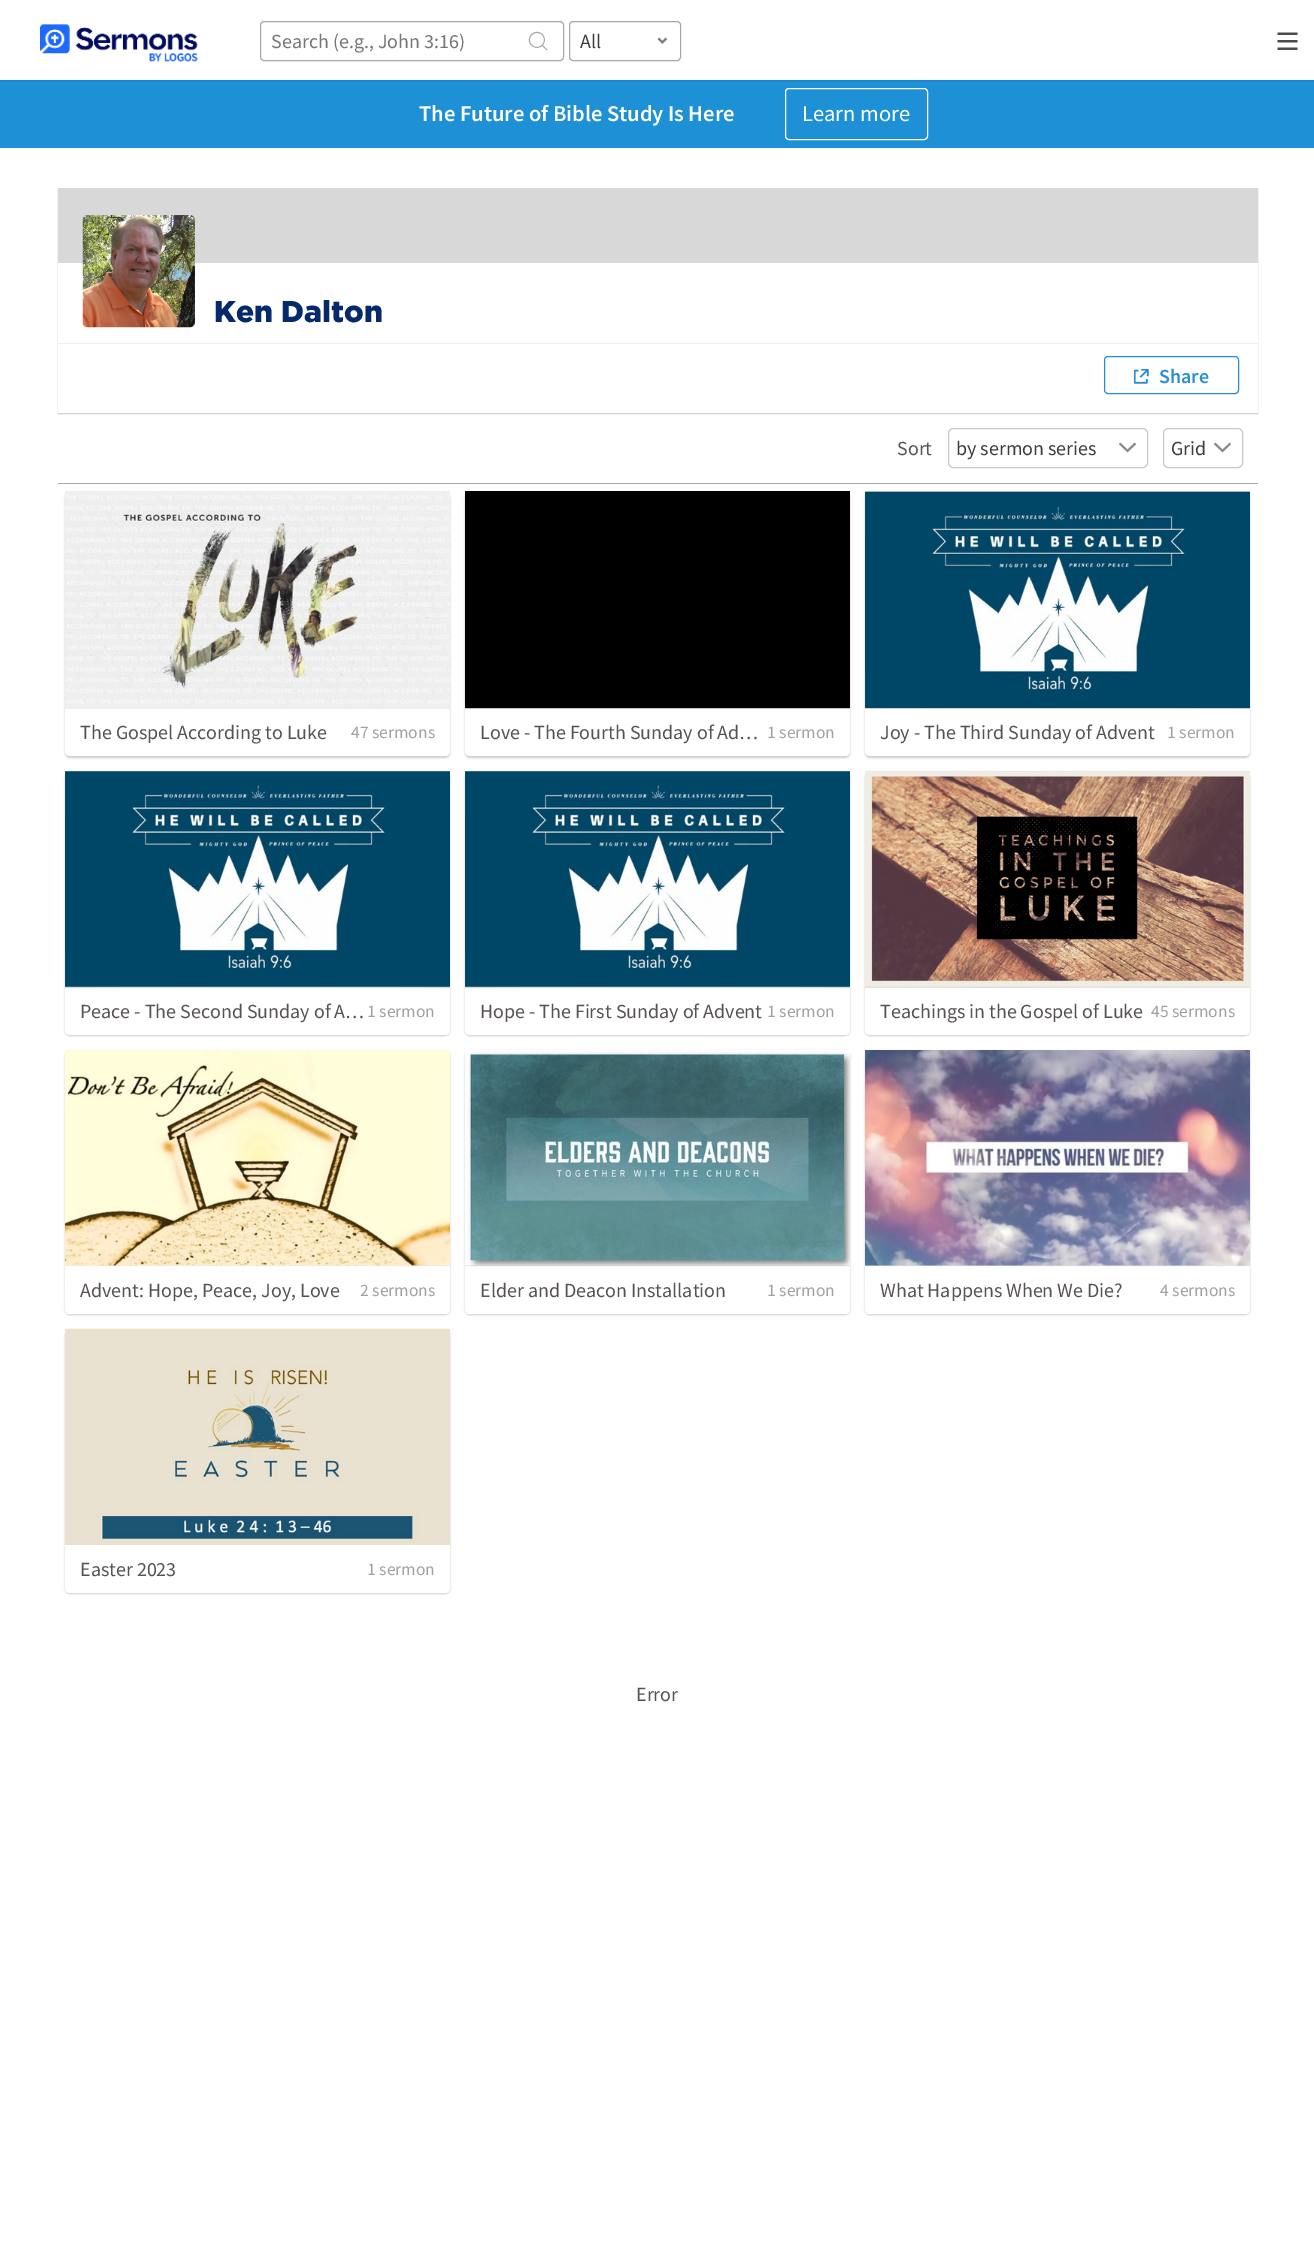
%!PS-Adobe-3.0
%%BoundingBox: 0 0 1314 2263
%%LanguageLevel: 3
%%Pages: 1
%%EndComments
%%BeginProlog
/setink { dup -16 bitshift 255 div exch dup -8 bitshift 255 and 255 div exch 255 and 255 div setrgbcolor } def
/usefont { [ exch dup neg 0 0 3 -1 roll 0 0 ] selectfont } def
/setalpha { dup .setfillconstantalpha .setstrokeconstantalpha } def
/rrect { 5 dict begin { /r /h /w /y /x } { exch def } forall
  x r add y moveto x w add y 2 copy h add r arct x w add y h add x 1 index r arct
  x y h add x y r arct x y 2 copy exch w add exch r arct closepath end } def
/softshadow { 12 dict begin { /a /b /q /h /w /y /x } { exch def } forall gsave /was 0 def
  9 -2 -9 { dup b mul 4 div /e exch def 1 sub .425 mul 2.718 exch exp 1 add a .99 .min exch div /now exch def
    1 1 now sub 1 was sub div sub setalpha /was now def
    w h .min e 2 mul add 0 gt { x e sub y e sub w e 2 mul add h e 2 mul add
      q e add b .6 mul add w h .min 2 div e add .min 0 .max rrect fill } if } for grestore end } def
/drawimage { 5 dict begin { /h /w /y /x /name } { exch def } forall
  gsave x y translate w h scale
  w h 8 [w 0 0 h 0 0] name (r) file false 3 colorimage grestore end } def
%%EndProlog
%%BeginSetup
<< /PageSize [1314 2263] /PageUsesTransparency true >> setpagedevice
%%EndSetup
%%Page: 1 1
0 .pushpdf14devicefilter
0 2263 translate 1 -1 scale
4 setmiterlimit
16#FFFFFF setink
0 0 1314 2263 rectfill
16#1E91D6 setink
0 80 1314 68 rectfill
gsave
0 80 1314 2 rectclip
16#000000 setink
0 1 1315 80 0 1 0.1 softshadow
grestore
(img1.raw) 40 24 158 38 drawimage
16#A8A8A8 setink
260.5 21.5 303 39 3.5 rrect stroke
/SourceSansPro-Regular 20 usefont
16#757575 setink
271 48 moveto (Search \(e.g., John 3:16\)) show
(img2.raw) 528 31 20 20 drawimage
16#A8A8A8 setink
569.5 21.5 111 39 3.5 rrect stroke
16#3D3D3D setink
580 48 moveto (All) show
(img3.raw) 657 37 11 7 drawimage
(img4.raw) 1277 32 21 18 drawimage
/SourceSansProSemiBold-SemiBold 22.5 usefont
16#FFFFFF setink
419 121 moveto (The Future of Bible Study Is Here) show
785.5 88.5 142 51 3.5 rrect stroke
/SourceSansPro-Regular 22.5 usefont
802 121 moveto (Learn more) show
gsave
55 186 moveto 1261 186 lineto 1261 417 lineto 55 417 lineto closepath 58 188 moveto 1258 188 lineto 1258 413 lineto 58 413 lineto closepath eoclip newpath
16#000000 setink
58 189 1200 225 0 0.5 0.2 softshadow
grestore
16#EEEEEE setink
58 343 1200 1 rectfill
16#D8D8D8 setink
58 188 1200 75 rectfill
(img5.raw) 82 215 113 113 drawimage
/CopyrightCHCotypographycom-Regular 30 usefont
16#06296C setink
214 322 moveto (Ken Dalton) show
16#278ED4 setink
1104.5 356.5 134 37 3.5 rrect stroke
(img6.raw) 1134 369 15 15 drawimage
/SourceSansProSemiBold-SemiBold 20 usefont
1159 383 moveto (Share) show
16#A8A8A8 setink
58 483 1200 1 rectfill
/SourceSansPro-Regular 20 usefont
16#575251 setink
897 455 moveto (Sort) show
16#C7C7C7 setink
948.5 428.5 199 39 4.5 rrect stroke
16#3D3D3D setink
956 455 moveto (by sermon series) show
(img7.raw) 1118 442 19 11 drawimage
16#C7C7C7 setink
1163.5 428.5 79 39 4.5 rrect stroke
16#3D3D3D setink
1171 455 moveto (Grid) show
(img7.raw) 1213 442 19 11 drawimage
16#000000 setink
65 493 385 265 5 1 0.2 softshadow
16#FFFFFF setink
65 491 moveto 450 491 lineto 450 751 lineto 450 754 448 756 445 756 curveto 70 756 lineto 67 756 65 754 65 751 curveto closepath fill
16#EEEEEE setink
65 491 385 218 rectfill
(img9.raw) 75 707 375 1 drawimage
(img8.raw) 65 493 385 215 drawimage
16#575251 setink
80 739 moveto (The Gospel According to Luke) show
/SourceSansPro-Regular 17.5 usefont
16#A1A1A1 setink
351 738 moveto (47 sermons) show
16#000000 setink
465 493 385 265 5 1 0.2 softshadow
16#FFFFFF setink
465 491 moveto 850 491 lineto 850 751 lineto 850 754 848 756 845 756 curveto 470 756 lineto 467 756 465 754 465 751 curveto closepath fill
16#EEEEEE setink
465 708 385 1 rectfill
16#000000 setink
465 491 385 217 rectfill
(img10.raw) 465 708 385 1 drawimage
/SourceSansPro-Regular 20 usefont
16#575251 setink
480 739 moveto (Love - The Fourth Sunday of Ad…) show
/SourceSansPro-Regular 17.5 usefont
16#A1A1A1 setink
767 738 moveto (1 sermon) show
16#000000 setink
865 493 385 265 5 1 0.2 softshadow
16#FFFFFF setink
865 491 moveto 1250 491 lineto 1250 751 lineto 1250 754 1248 756 1245 756 curveto 870 756 lineto 867 756 865 754 865 751 curveto closepath fill
16#EEEEEE setink
865 491 385 218 rectfill
(img11.raw) 865 491 385 218 drawimage
(img12.raw) 865 491 385 217 drawimage
/SourceSansPro-Regular 20 usefont
16#575251 setink
880 739 moveto (Joy - The Third Sunday of Advent) show
/SourceSansPro-Regular 17.5 usefont
16#A1A1A1 setink
1167 738 moveto (1 sermon) show
16#000000 setink
65 773 385 263 5 1 0.2 softshadow
16#FFFFFF setink
65 771 moveto 450 771 lineto 450 1030 lineto 450 1033 448 1035 445 1035 curveto 70 1035 lineto 67 1035 65 1033 65 1030 curveto closepath fill
16#EEEEEE setink
65 771 385 217 rectfill
(img13.raw) 65 771 385 217 drawimage
(img14.raw) 65 771 385 216 drawimage
/SourceSansPro-Regular 20 usefont
16#575251 setink
80 1018 moveto (Peace - The Second Sunday of A…) show
/SourceSansPro-Regular 17.5 usefont
16#A1A1A1 setink
367 1017 moveto (1 sermon) show
16#000000 setink
465 773 385 263 5 1 0.2 softshadow
16#FFFFFF setink
465 771 moveto 850 771 lineto 850 1030 lineto 850 1033 848 1035 845 1035 curveto 470 1035 lineto 467 1035 465 1033 465 1030 curveto closepath fill
16#EEEEEE setink
465 771 385 217 rectfill
(img13.raw) 465 771 385 217 drawimage
(img14.raw) 465 771 385 216 drawimage
/SourceSansPro-Regular 20 usefont
16#575251 setink
480 1018 moveto (Hope - The First Sunday of Advent) show
/SourceSansPro-Regular 17.5 usefont
16#A1A1A1 setink
767 1017 moveto (1 sermon) show
16#000000 setink
865 773 385 263 5 1 0.2 softshadow
16#FFFFFF setink
865 771 moveto 1250 771 lineto 1250 1030 lineto 1250 1033 1248 1035 1245 1035 curveto 870 1035 lineto 867 1035 865 1033 865 1030 curveto closepath fill
16#EEEEEE setink
865 771 385 217 rectfill
(img15.raw) 865 771 385 217 drawimage
(img16.raw) 865 771 385 216 drawimage
/SourceSansPro-Regular 20 usefont
16#575251 setink
880 1018 moveto (Teachings in the Gospel of Luke) show
/SourceSansPro-Regular 17.5 usefont
16#A1A1A1 setink
1151 1017 moveto (45 sermons) show
16#000000 setink
65 1051 385 264 5 1 0.2 softshadow
16#FFFFFF setink
65 1050 moveto 450 1050 lineto 450 1309 lineto 450 1312 448 1314 445 1314 curveto 70 1314 lineto 67 1314 65 1312 65 1309 curveto closepath fill
16#EEEEEE setink
65 1050 385 216 rectfill
(img17.raw) 65 1050 385 217 drawimage
(img18.raw) 65 1050 385 216 drawimage
/SourceSansPro-Regular 20 usefont
16#575251 setink
80 1297 moveto (Advent: Hope, Peace, Joy, Love) show
/SourceSansPro-Regular 17.5 usefont
16#A1A1A1 setink
360 1296 moveto (2 sermons) show
16#000000 setink
465 1051 385 264 5 1 0.2 softshadow
16#FFFFFF setink
465 1050 moveto 850 1050 lineto 850 1309 lineto 850 1312 848 1314 845 1314 curveto 470 1314 lineto 467 1314 465 1312 465 1309 curveto closepath fill
16#EEEEEE setink
465 1050 385 216 rectfill
(img19.raw) 465 1050 385 217 drawimage
(img20.raw) 465 1050 385 216 drawimage
/SourceSansPro-Regular 20 usefont
16#575251 setink
480 1297 moveto (Elder and Deacon Installation) show
/SourceSansPro-Regular 17.5 usefont
16#A1A1A1 setink
767 1296 moveto (1 sermon) show
16#000000 setink
865 1051 385 264 5 1 0.2 softshadow
16#FFFFFF setink
865 1050 moveto 1250 1050 lineto 1250 1309 lineto 1250 1312 1248 1314 1245 1314 curveto 870 1314 lineto 867 1314 865 1312 865 1309 curveto closepath fill
16#EEEEEE setink
865 1050 385 216 rectfill
(img21.raw) 865 1050 385 217 drawimage
(img22.raw) 865 1050 385 216 drawimage
/SourceSansPro-Regular 20 usefont
16#575251 setink
880 1297 moveto (What Happens When We Die?) show
/SourceSansPro-Regular 17.5 usefont
16#A1A1A1 setink
1160 1296 moveto (4 sermons) show
16#000000 setink
65 1330 385 264 5 1 0.2 softshadow
16#FFFFFF setink
65 1329 moveto 450 1329 lineto 450 1588 lineto 450 1591 448 1593 445 1593 curveto 70 1593 lineto 67 1593 65 1591 65 1588 curveto closepath fill
(img24.raw) 65 1329 1 216 drawimage
(img23.raw) 65 1328 385 217 drawimage
/SourceSansPro-Regular 20 usefont
16#575251 setink
80 1576 moveto (Easter 2023) show
/SourceSansPro-Regular 17.5 usefont
16#A1A1A1 setink
367 1575 moveto (1 sermon) show
/SourceSansPro-Regular 20 usefont
16#575251 setink
636 1701 moveto (Error) show
.poppdf14devicefilter showpage
%%EOF
